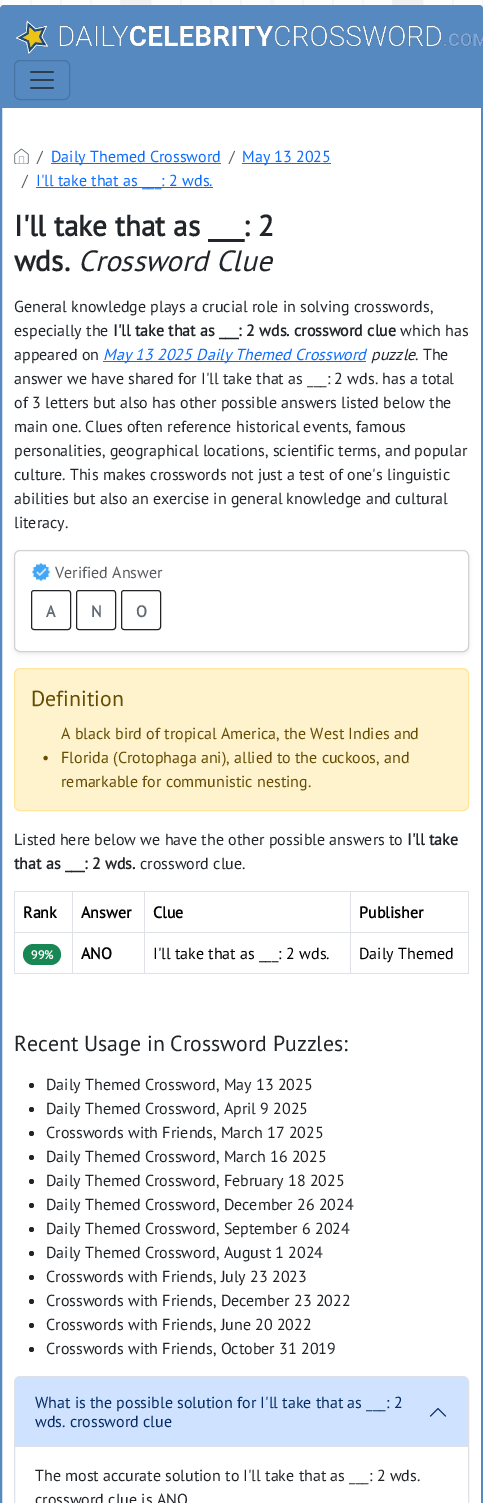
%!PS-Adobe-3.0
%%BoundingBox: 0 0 483 1503
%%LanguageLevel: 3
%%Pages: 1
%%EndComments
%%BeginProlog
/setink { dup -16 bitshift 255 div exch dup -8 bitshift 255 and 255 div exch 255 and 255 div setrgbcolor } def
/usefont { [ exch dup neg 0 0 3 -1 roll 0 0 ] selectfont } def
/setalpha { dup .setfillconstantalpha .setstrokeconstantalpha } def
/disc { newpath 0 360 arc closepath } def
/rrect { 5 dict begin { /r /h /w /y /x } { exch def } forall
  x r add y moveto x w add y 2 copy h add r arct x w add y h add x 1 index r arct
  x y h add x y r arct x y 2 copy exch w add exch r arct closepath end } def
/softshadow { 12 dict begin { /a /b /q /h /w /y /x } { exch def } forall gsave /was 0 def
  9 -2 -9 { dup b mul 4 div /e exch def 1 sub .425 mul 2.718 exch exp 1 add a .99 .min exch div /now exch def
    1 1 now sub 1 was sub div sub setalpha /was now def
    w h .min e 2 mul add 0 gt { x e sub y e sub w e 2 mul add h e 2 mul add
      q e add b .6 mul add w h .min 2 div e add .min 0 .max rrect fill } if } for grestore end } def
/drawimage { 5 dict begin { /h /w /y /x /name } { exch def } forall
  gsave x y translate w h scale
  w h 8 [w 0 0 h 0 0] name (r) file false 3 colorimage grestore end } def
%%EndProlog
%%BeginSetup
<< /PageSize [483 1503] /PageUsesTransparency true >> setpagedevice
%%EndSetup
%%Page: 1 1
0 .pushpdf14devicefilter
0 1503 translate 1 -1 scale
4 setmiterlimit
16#FFFFFF setink
0 0 483 1503 rectfill
(img1.raw) 0 0 483 9 drawimage
1 6 481 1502 3 rrect gsave fill grestore
16#5589C0 setink
2 setlinewidth
stroke
2 7 479 101 rectfill
(img2.raw) 15 20 468 35 drawimage
16#4874A3 setink
1 setlinewidth
14.5 60.5 55 39 5.5 rrect stroke
(img3.raw) 30 71 24 18 drawimage
(img4.raw) 14 148 15 16 drawimage
/PTSans-Regular 16 usefont
16#595C5F setink
37 162 moveto (/) show
16#0D6EFD setink
51 163 170 1 rectfill
51 162 moveto (Daily Themed Crossword) show
16#595C5F setink
229 162 moveto (/) show
16#0D6EFD setink
242 163 89 1 rectfill
242 162 moveto (May 13 2025) show
16#595C5F setink
22 186 moveto (/) show
16#0D6EFD setink
36 187 177 1 rectfill
36 186 moveto (I'll take that as ___: 2 wds.) show
/PTSans-Bold 29.25 usefont
16#212529 setink
14 236 moveto (I'll take that as ___: 2) show
14 271 moveto (wds.) show
/PTSans-Italic 29.25 usefont
78 271 moveto (Crossword Clue) show
/PTSans-Regular 16 usefont
14 312 moveto (General knowledge plays a crucial role in solving crosswords,) show
14 336 moveto (especially the) show
/PTSans-Bold 16 usefont
113 336 moveto (I'll take that as ___: 2 wds. crossword clue) show
/PTSans-Regular 16 usefont
400 336 moveto (which has) show
14 360 moveto (appeared on) show
16#0D6EFD setink
103 361 263 1 rectfill
/PTSans-Italic 16 usefont
103 360 moveto (May 13 2025 Daily Themed Crossword) show
16#212529 setink
371 360 moveto (puzzle) show
/PTSans-Regular 16 usefont
[
    [(. The) 415 360]
    [(answer we have shared for I'll take that as ___: 2 wds. has a total) 14 384]
    [(of 3 letters but also has other possible answers listed below the) 14 408]
    [(main one. Clues often reference historical events, famous) 14 432]
    [(personalities, geographical locations, scientific terms, and popular) 14 456]
    [(culture. This makes crosswords not just a test of one's linguistic) 14 480]
    [(abilities but also an exercise in general knowledge and cultural) 14 504]
    [(literacy.) 14 528]
] { aload pop moveto show } forall
16#000000 setink
14 552 455 102 6 2 0.07 softshadow
16#FFFFFF setink
14.5 550.5 454 101 5.5 rrect gsave fill grestore
16#D2D2D2 setink
stroke
(img5.raw) 31 562 20 20 drawimage
16#595C5F setink
55 578 moveto (Verified Answer) show
16#212327 setink
31.5 590.5 39 39 2.5 rrect stroke
/PTSans-Bold 16 usefont
16#606971 setink
46 617 moveto (A) show
16#212327 setink
76.5 590.5 39 39 2.5 rrect stroke
16#606971 setink
91 617 moveto (N) show
16#212327 setink
121.5 590.5 39 39 2.5 rrect stroke
16#606971 setink
136 617 moveto (O) show
16#FFF3CD setink
14.5 668.5 454 142 5.5 rrect gsave fill grestore
16#FFE69C setink
stroke
/PTSans-Regular 21.8 usefont
16#664D03 setink
31 706 moveto (Definition) show
/PTSans-Regular 16 usefont
[
    [(•) 42 763]
    [(A black bird of tropical America, the West Indies and) 61 739]
    [(Florida \(Crotophaga ani\), allied to the cuckoos, and) 61 763]
    [(remarkable for communistic nesting.) 61 787]
] { aload pop moveto show } forall
16#212529 setink
14 845 moveto (Listed here below we have the other possible answers to) show
/PTSans-Bold 16 usefont
407 845 moveto (I'll take) show
14 869 moveto (that as ___: 2 wds.) show
/PTSans-Regular 16 usefont
140 869 moveto (crossword clue.) show
16#DEE2E6 setink
14 891 455 1 rectfill
/PTSans-Bold 16 usefont
16#000000 setink
[
    [(Rank) 23 918]
    [(Answer) 81 918]
    [(Clue) 153 918]
    [(Publisher) 359 918]
] { aload pop moveto show } forall
[
    [14 932 455 1 16#DEE2E6]
    [14 973 455 1 16#DEE2E6]
    [14 891 1 83 16#DEE2E6]
] { aload pop setink rectfill } forall
16#198754 setink
23 944 38 21 10.5 rrect fill
/PTSans-Bold 12 usefont
16#FFFFFF setink
31 959 moveto (99%) show
16#DEE2E6 setink
72 891 1 83 rectfill
/PTSans-Bold 16 usefont
16#000000 setink
81 959 moveto (ANO) show
16#DEE2E6 setink
144 891 1 83 rectfill
/PTSans-Regular 16 usefont
16#000000 setink
153 959 moveto (I'll take that as ___: 2 wds.) show
16#DEE2E6 setink
468 891 1 83 rectfill
350 891 1 83 rectfill
16#000000 setink
359 959 moveto (Daily Themed) show
/PTSans-Regular 21.8 usefont
16#212529 setink
14 1051 moveto (Recent Usage in Crossword Puzzles:) show
31.5 1085.5 2.5 disc fill
/PTSans-Regular 16 usefont
46 1090 moveto (Daily Themed Crossword, May 13 2025) show
31.5 1109.5 2.5 disc fill
46 1114 moveto (Daily Themed Crossword, April 9 2025) show
31.5 1133.5 2.5 disc fill
46 1138 moveto (Crosswords with Friends, March 17 2025) show
31.5 1157.5 2.5 disc fill
46 1162 moveto (Daily Themed Crossword, March 16 2025) show
31.5 1181.5 2.5 disc fill
46 1186 moveto (Daily Themed Crossword, February 18 2025) show
31.5 1205.5 2.5 disc fill
46 1210 moveto (Daily Themed Crossword, December 26 2024) show
31.5 1229.5 2.5 disc fill
46 1234 moveto (Daily Themed Crossword, September 6 2024) show
31.5 1253.5 2.5 disc fill
46 1258 moveto (Daily Themed Crossword, August 1 2024) show
31.5 1277.5 2.5 disc fill
46 1282 moveto (Crosswords with Friends, July 23 2023) show
31.5 1301.5 2.5 disc fill
46 1306 moveto (Crosswords with Friends, December 23 2022) show
31.5 1325.5 2.5 disc fill
46 1330 moveto (Crosswords with Friends, June 20 2022) show
31.5 1349.5 2.5 disc fill
46 1354 moveto (Crosswords with Friends, October 31 2019) show
16#DEE2E6 setink
20 1376.5 moveto 463 1376.5 lineto 466 1376.5 468.5 1379 468.5 1382 curveto 468.5 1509.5 lineto 14.5 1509.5 lineto 14.5 1382 lineto 14.5 1379 17 1376.5 20 1376.5 curveto closepath stroke
16#CFE2FF setink
20 1377 moveto 463 1377 lineto 466 1377 468 1379 468 1382 curveto 468 1447 lineto 15 1447 lineto 15 1382 lineto 15 1379 17 1377 20 1377 curveto closepath fill
16#DEE2E6 setink
15 1446 453 1 rectfill
16#052C65 setink
35 1408 moveto (What is the possible solution for I'll take that as ___: 2) show
(img6.raw) 429 1408 18 9 drawimage
35 1427 moveto (wds. crossword clue) show
16#212529 setink
35 1481 moveto (The most accurate solution to I'll take that as ___: 2 wds.) show
35 1505 moveto (crossword clue is ANO) show
.poppdf14devicefilter showpage
%%EOF
